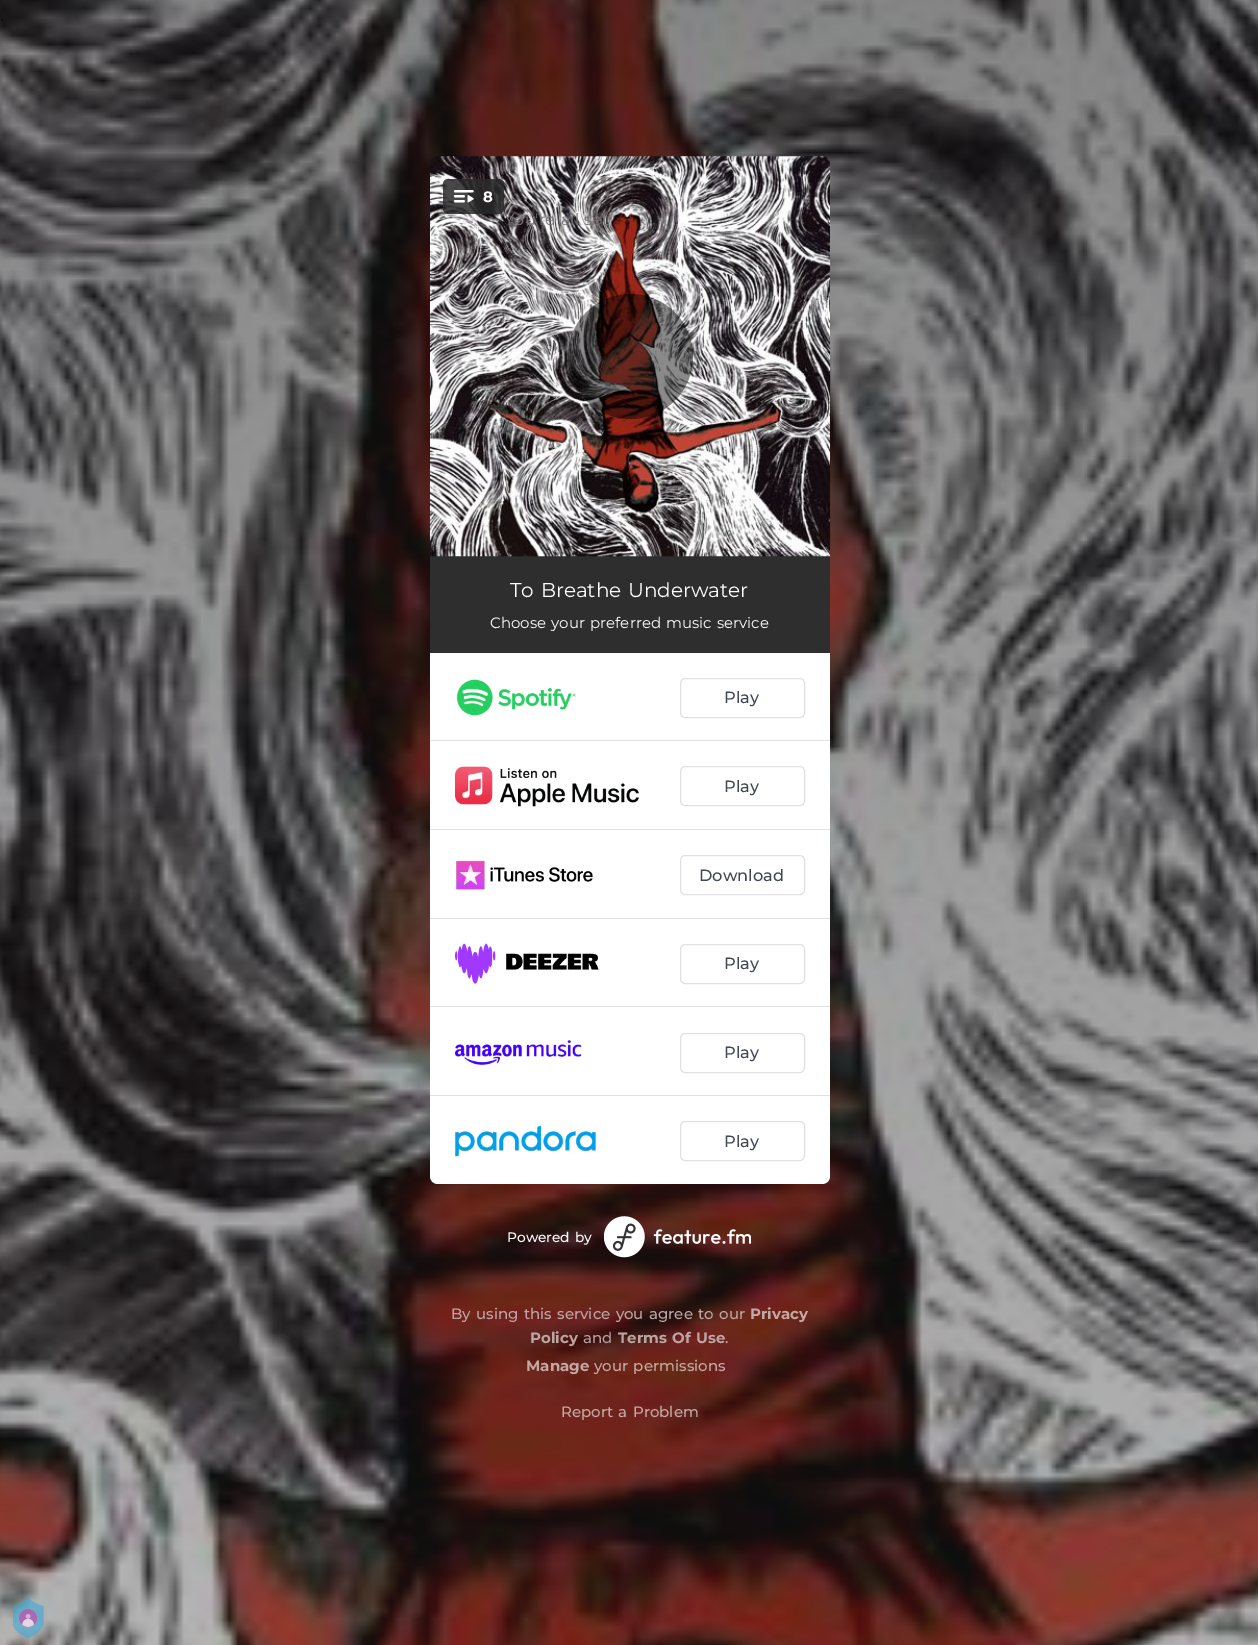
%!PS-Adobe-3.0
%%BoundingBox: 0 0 1258 1645
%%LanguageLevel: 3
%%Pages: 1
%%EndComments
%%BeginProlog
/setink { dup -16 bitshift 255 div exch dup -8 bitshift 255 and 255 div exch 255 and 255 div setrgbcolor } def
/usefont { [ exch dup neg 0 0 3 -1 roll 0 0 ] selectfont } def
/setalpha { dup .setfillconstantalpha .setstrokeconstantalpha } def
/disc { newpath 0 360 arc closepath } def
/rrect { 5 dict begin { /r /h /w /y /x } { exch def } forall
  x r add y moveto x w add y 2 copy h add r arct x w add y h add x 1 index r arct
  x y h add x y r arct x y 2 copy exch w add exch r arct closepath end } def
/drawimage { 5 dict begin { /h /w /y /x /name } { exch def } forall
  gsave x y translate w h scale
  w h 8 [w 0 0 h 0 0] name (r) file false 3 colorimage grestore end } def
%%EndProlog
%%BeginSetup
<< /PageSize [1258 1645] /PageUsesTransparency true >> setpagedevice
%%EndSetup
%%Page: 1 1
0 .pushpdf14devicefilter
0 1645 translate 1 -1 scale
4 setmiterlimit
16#FFFFFF setink
0 0 1258 1645 rectfill
(img1.raw) 0 0 1258 1645 drawimage
16#2E2E2E setink
430 556 400 97 rectfill
(img2.raw) 430 156 400 401 drawimage
0.85 setalpha
16#282828 setink
443 179 61 35 5 rrect fill
1 setalpha
(img3.raw) 454 190 20 13 drawimage
/Montserrat-Bold 15 usefont
16#FFFFFF setink
483 202 moveto (8) show
0.45 setalpha
16#000000 setink
630.5 356.5 62.5 disc fill
/Montserrat-Regular 16.25 usefont
1 setalpha
16#797578 setink
504 225 moveto 1.25 0 32 (You're all set!) widthshow
/Montserrat-Regular 20 usefont
16#FFFFFF setink
510 597 moveto 1.25 0 32 (To Breathe Underwater) widthshow
/Montserrat-Regular 15 usefont
490 628 moveto 1.25 0 32 (Choose your preferred music service) widthshow
430 653 moveto 830 653 lineto 830 1176 lineto 830 1180.5 826.5 1184 822 1184 curveto 438 1184 lineto 433.5 1184 430 1180.5 430 1176 curveto closepath fill
16#E1E1E4 setink
430 740 400 1 rectfill
(img4.raw) 456 679 121 37 drawimage
680.5 678.5 124 39 4.5 rrect stroke
/Montserrat-Medium 16.25 usefont
16#414754 setink
724 703 moveto (Play) show
16#E1E1E4 setink
430 829 400 1 rectfill
(img5.raw) 455 766 184 41 drawimage
680.5 766.5 124 39 4.5 rrect stroke
16#414754 setink
724 792 moveto (Play) show
16#E1E1E4 setink
430 918 400 1 rectfill
(img6.raw) 456 860 137 30 drawimage
680.5 855.5 124 39 4.5 rrect stroke
16#414754 setink
699 881 moveto (Download) show
16#E1E1E4 setink
430 1006 400 1 rectfill
(img7.raw) 455 943 144 41 drawimage
680.5 944.5 124 39 4.5 rrect stroke
16#414754 setink
724 969 moveto (Play) show
16#E1E1E4 setink
430 1095 400 1 rectfill
(img8.raw) 455 1040 127 25 drawimage
680.5 1033.5 124 39 4.5 rrect stroke
16#414754 setink
724 1058 moveto (Play) show
(img9.raw) 455 1125 143 32 drawimage
16#E1E1E4 setink
680.5 1121.5 124 39 4.5 rrect stroke
16#414754 setink
724 1147 moveto (Play) show
/Montserrat-Medium 13.75 usefont
16#FFFFFF setink
507 1242 moveto 1.25 0 32 (Powered by) widthshow
(img10.raw) 604 1216 147 42 drawimage
/Montserrat-Medium 15 usefont
16#BDA5A3 setink
451 1319 moveto 1.25 0 32 (By using this service you agree to our) widthshow
/Montserrat-Bold 15 usefont
16#C4A8A3 setink
750 1319 moveto (Privacy) show
16#BDA5A3 setink
530 1343 moveto (Policy) show
/Montserrat-Medium 15 usefont
16#B3A09F setink
583 1343 moveto (and) show
/Montserrat-Bold 15 usefont
16#BDA5A3 setink
618 1343 moveto 1.25 0 32 (Terms Of Use) widthshow
/Montserrat-Medium 15 usefont
16#C4A8A3 setink
725 1343 moveto (.) show
/Montserrat-Bold 15 usefont
526 1371 moveto (Manage) show
/Montserrat-Medium 15 usefont
594 1371 moveto 1.25 0 32 (your permissions) widthshow
561 1417 moveto 1.25 0 32 (Report a Problem) widthshow
(img11.raw) 13 1598 31 41 drawimage
.poppdf14devicefilter showpage
%%EOF
